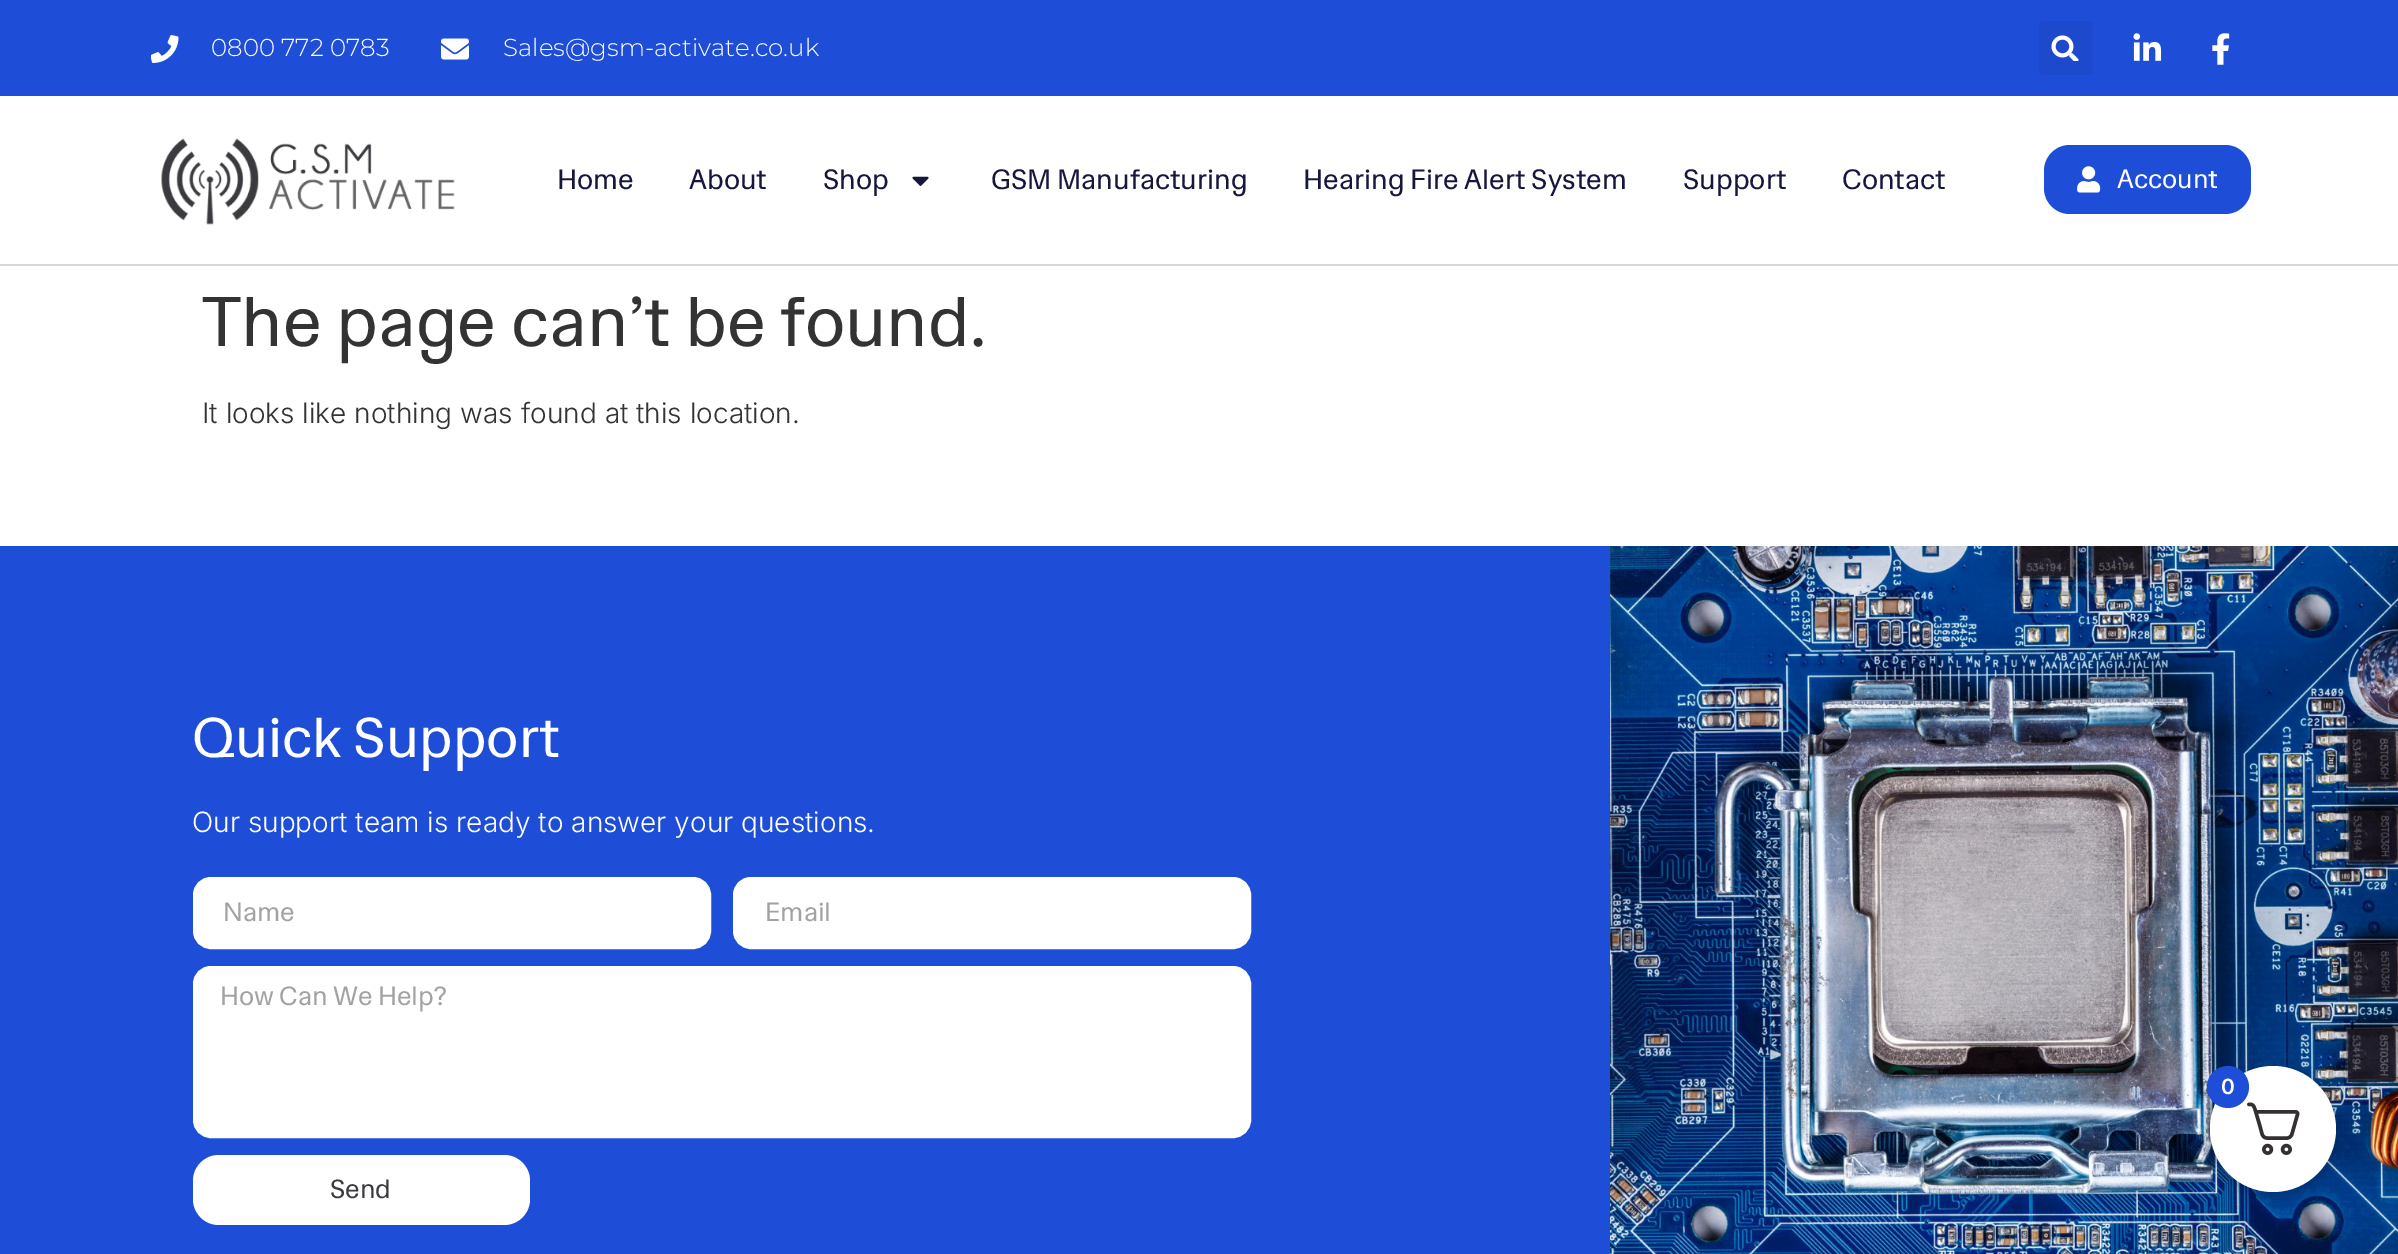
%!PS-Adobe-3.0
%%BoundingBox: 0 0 2398 1254
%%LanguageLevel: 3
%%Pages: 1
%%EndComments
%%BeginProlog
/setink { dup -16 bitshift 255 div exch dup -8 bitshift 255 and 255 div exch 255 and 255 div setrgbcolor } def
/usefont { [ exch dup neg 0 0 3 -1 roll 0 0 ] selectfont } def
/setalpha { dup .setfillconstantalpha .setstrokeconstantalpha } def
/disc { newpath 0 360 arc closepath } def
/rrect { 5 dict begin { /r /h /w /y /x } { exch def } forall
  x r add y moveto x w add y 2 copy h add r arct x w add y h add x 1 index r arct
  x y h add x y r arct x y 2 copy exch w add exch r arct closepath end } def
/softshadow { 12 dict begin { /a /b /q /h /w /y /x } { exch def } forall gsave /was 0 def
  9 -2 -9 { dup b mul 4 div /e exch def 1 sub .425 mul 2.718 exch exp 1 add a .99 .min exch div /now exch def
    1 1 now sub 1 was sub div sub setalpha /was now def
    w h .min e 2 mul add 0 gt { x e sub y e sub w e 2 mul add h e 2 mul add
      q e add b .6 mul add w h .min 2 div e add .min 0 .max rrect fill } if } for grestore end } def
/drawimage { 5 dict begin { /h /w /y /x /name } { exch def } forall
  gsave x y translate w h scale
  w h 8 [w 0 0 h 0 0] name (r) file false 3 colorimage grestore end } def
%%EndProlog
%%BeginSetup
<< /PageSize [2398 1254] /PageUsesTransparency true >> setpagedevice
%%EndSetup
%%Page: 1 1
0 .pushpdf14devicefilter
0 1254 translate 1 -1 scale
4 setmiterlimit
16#FFFFFF setink
0 0 2398 1254 rectfill
16#D8D8D9 setink
0 264 2398 2 rectfill
16#1E4DD8 setink
0 0 2398 96 rectfill
(img1.raw) 151 35 28 28 drawimage
/Montserrat-Light 24.5 usefont
16#FFFFFF setink
211 56 moveto (0800 772 0783) show
(img2.raw) 441 38 28 22 drawimage
503 56 moveto (Sales@gsm-activate.co.uk) show
16#1D49CD setink
2039 21 54 54 5 rrect fill
(img3.raw) 2051 35 28 26 drawimage
(img4.raw) 2133 33 29 28 drawimage
(img5.raw) 2212 33 18 32 drawimage
(img6.raw) 161 138 294 87 drawimage
/HedvigLettersSans-Regular 28 usefont
16#16163F setink
[
    [(Home) 557 189]
    [(About) 689 189]
    [(Shop) 823 189]
] { aload pop moveto show } forall
(img7.raw) 912 176 17 10 drawimage
[
    [(GSM Manufacturing) 991 189]
    [(Hearing Fire Alert System) 1303 189]
    [(Support) 1683 189]
    [(Contact) 1842 189]
] { aload pop moveto show } forall
16#1E4DD8 setink
2044 145 207 69 26 rrect fill
(img8.raw) 2077 166 24 27 drawimage
/HedvigLettersSans-Regular 26.25 usefont
16#FFFFFF setink
2117 188 moveto (Account) show
/HedvigLettersSans-Regular 70 usefont
16#333333 setink
202 346 moveto (The page can’t be found.) show
/Inter-Light 28 usefont
202 423 moveto (It looks like nothing was found at this location.) show
16#1E4DD8 setink
0 546 1610 708 rectfill
/HedvigLettersSans-Regular 56 usefont
16#FFFFFF setink
192 757 moveto (Quick Support) show
/Inter-Light 28 usefont
192 832 moveto (Our support team is ready to answer your questions.) show
195 879 514 68 16 rrect gsave fill grestore
4 setlinewidth
stroke
/HedvigLettersSans-Regular 26.25 usefont
16#A2A1A3 setink
223 921 moveto (Name) show
16#FFFFFF setink
735 879 514 68 16 rrect gsave fill grestore
stroke
16#A2A1A3 setink
765 921 moveto (Email) show
16#FFFFFF setink
195 968 1054 168 16 rrect gsave fill grestore
stroke
16#A2A1A3 setink
220 1005 moveto (How Can We Help?) show
16#FFFFFF setink
193 1155 337 70 26 rrect fill
16#3B3A3F setink
330 1198 moveto (Send) show
(img9.raw) 1610 546 788 708 drawimage
16#000000 setink
2210 1069 126 126 63 7 0.25 softshadow
16#FFFFFF setink
2273 1129 63 disc fill
(img10.raw) 2247 1102 53 53 drawimage
16#1E4DD8 setink
2228 1087 21 disc fill
/Inter-SemiBold 21 usefont
16#FFFFFF setink
2221 1094 moveto (0) show
.poppdf14devicefilter showpage
%%EOF
